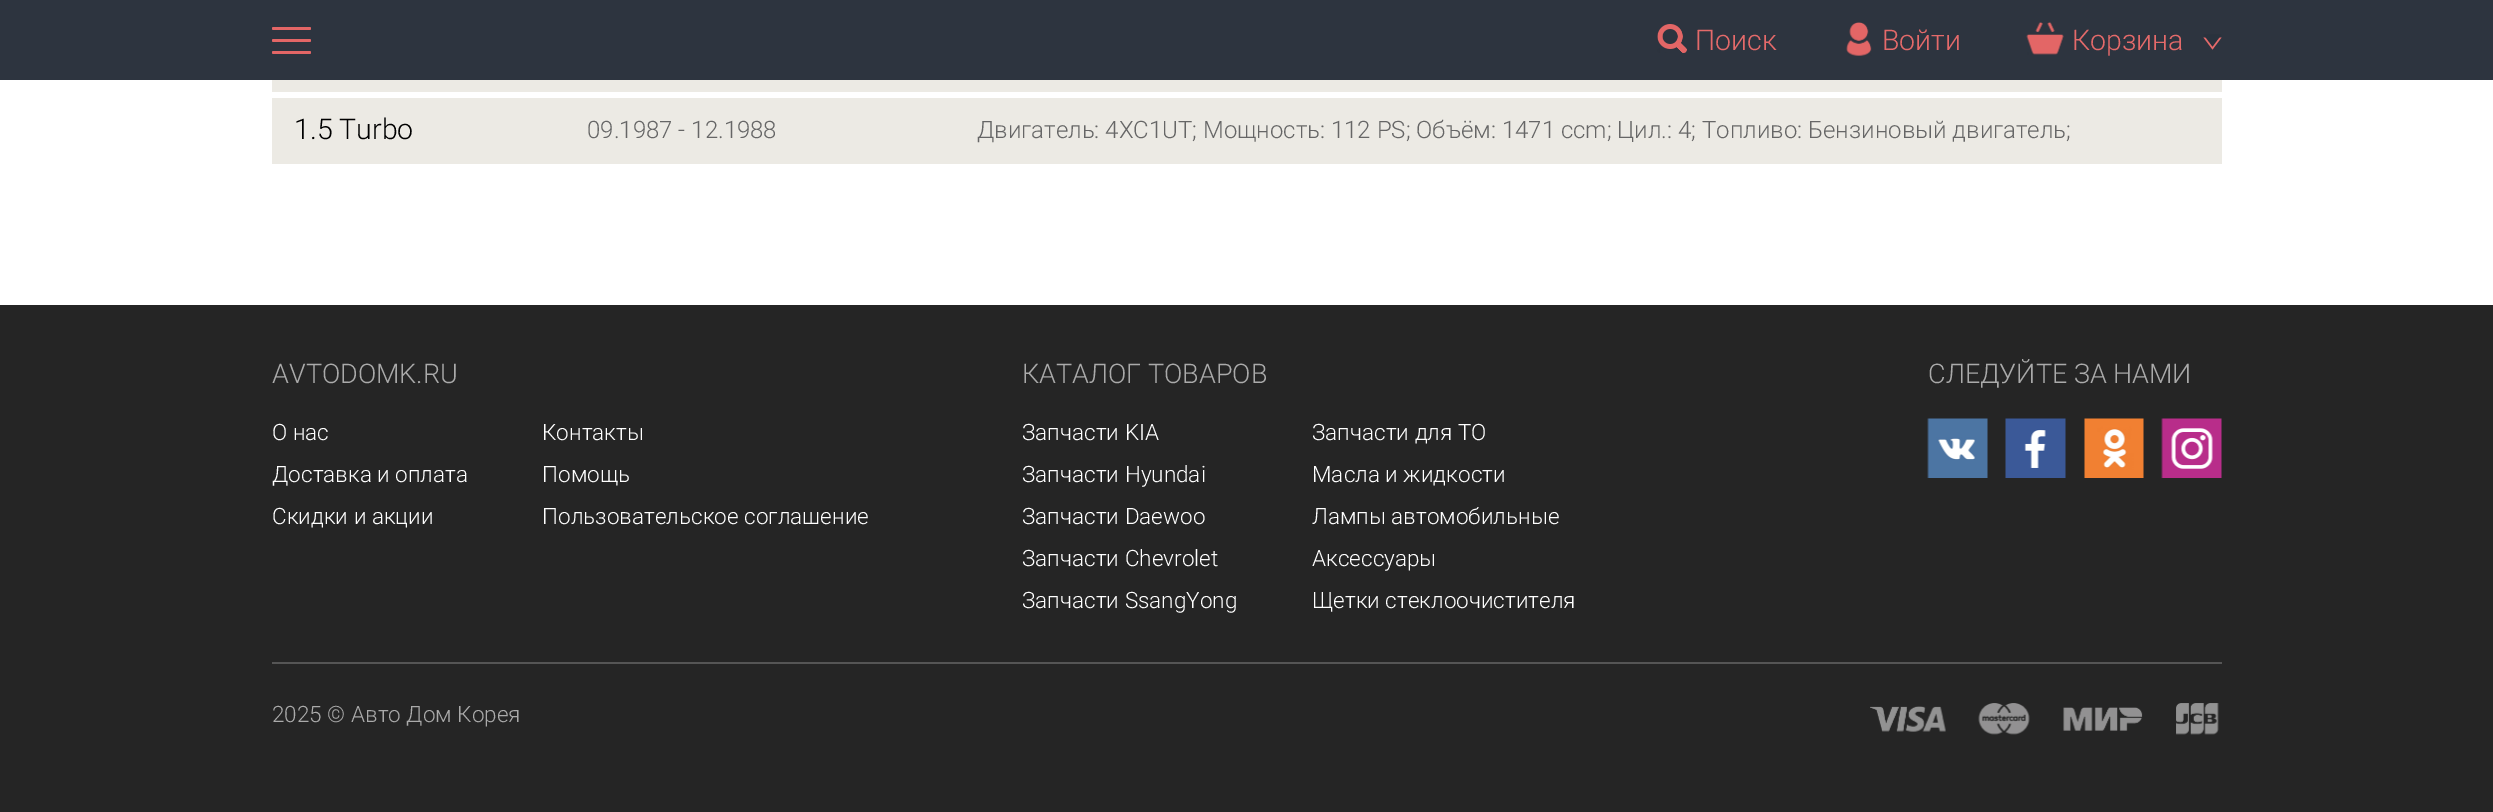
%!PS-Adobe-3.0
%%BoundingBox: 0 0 2493 812
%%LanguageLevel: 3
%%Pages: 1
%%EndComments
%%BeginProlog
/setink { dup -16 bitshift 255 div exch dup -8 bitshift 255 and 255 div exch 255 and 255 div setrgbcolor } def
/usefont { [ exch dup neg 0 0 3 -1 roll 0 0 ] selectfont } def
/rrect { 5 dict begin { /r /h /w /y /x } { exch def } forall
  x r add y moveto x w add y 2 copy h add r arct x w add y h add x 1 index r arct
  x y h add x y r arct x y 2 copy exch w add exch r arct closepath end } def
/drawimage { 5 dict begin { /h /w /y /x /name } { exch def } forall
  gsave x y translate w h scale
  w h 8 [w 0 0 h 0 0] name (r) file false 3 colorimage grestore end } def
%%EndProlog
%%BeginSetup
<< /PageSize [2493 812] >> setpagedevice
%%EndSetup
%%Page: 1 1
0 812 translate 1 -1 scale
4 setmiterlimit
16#FFFFFF setink
0 0 2493 812 rectfill
16#2D343F setink
0 0 2493 80 rectfill
16#E36666 setink
272 27 39 3 1.5 rrect fill
272 39 39 3 1.5 rrect fill
272 51 39 3 1.5 rrect fill
(img1.raw) 1657 24 30 29 drawimage
/Roboto-Light 28.5 usefont
16#E46A6A setink
1695 50 moveto (Поиск) show
(img2.raw) 1846 22 26 34 drawimage
1882 50 moveto (Войти) show
(img3.raw) 2026 22 38 33 drawimage
2072 50 moveto (Корзина) show
2203.5 37.5 moveto 2221.5 37.5 lineto 2212.5 49.5 lineto closepath fill
16#29323D setink
2203.5 34.5 moveto 2221.5 34.5 lineto 2212.5 46.5 lineto closepath fill
16#ECEAE4 setink
272 80 1950 12 rectfill
272 98 1950 66 rectfill
16#000000 setink
294 139 moveto (1.5 Turbo) show
/Roboto-Light 24 usefont
16#666666 setink
587 138 moveto (09.1987 - 12.1988) show
977 138 moveto (Двигатель: 4XC1UT; Мощность: 112 PS; Объём: 1471 ccm; Цил.: 4; Топливо: Бензиновый двигатель;) show
16#252525 setink
0 305 2493 507 rectfill
/Roboto-Light 27 usefont
16#AAAAAA setink
272 383 moveto (AVTODOMK.RU) show
/Roboto-Light 22.5 usefont
16#FFFFFF setink
[
    [(О нас) 272 440]
    [(Доставка и оплата) 272 482]
    [(Скидки и акции) 272 524]
    [(Контакты) 542 440]
    [(Помощь) 542 482]
    [(Пользовательское соглашение) 542 524]
] { aload pop moveto show } forall
/Roboto-Light 27 usefont
16#AAAAAA setink
1022 383 moveto (КАТАЛОГ ТОВАРОВ) show
/Roboto-Light 22.5 usefont
16#FFFFFF setink
[
    [(Запчасти KIA) 1022 440]
    [(Запчасти Hyundai) 1022 482]
    [(Запчасти Daewoo) 1022 524]
    [(Запчасти Chevrolet) 1022 566]
    [(Запчасти SsangYong) 1022 608]
    [(Запчасти для ТО) 1312 440]
    [(Масла и жидкости) 1312 482]
    [(Лампы автомобильные) 1312 524]
    [(Аксессуары) 1312 566]
    [(Щетки стеклоочистителя) 1312 608]
] { aload pop moveto show } forall
/Roboto-Light 27 usefont
16#AAAAAA setink
1928 383 moveto (СЛЕДУЙТЕ ЗА НАМИ) show
(img4.raw) 1927 418 61 60 drawimage
(img5.raw) 2005 418 61 60 drawimage
(img6.raw) 2084 418 60 60 drawimage
(img7.raw) 2161 418 61 60 drawimage
16#555555 setink
272 662 1950 2 rectfill
/Roboto-Light 22.5 usefont
16#AAAAAA setink
272 722 moveto (2025 © Авто Дом Корея) show
(img8.raw) 1870 706 76 26 drawimage
(img9.raw) 1978 703 52 32 drawimage
(img10.raw) 2063 707 80 24 drawimage
(img11.raw) 2176 703 43 32 drawimage
showpage
%%EOF
